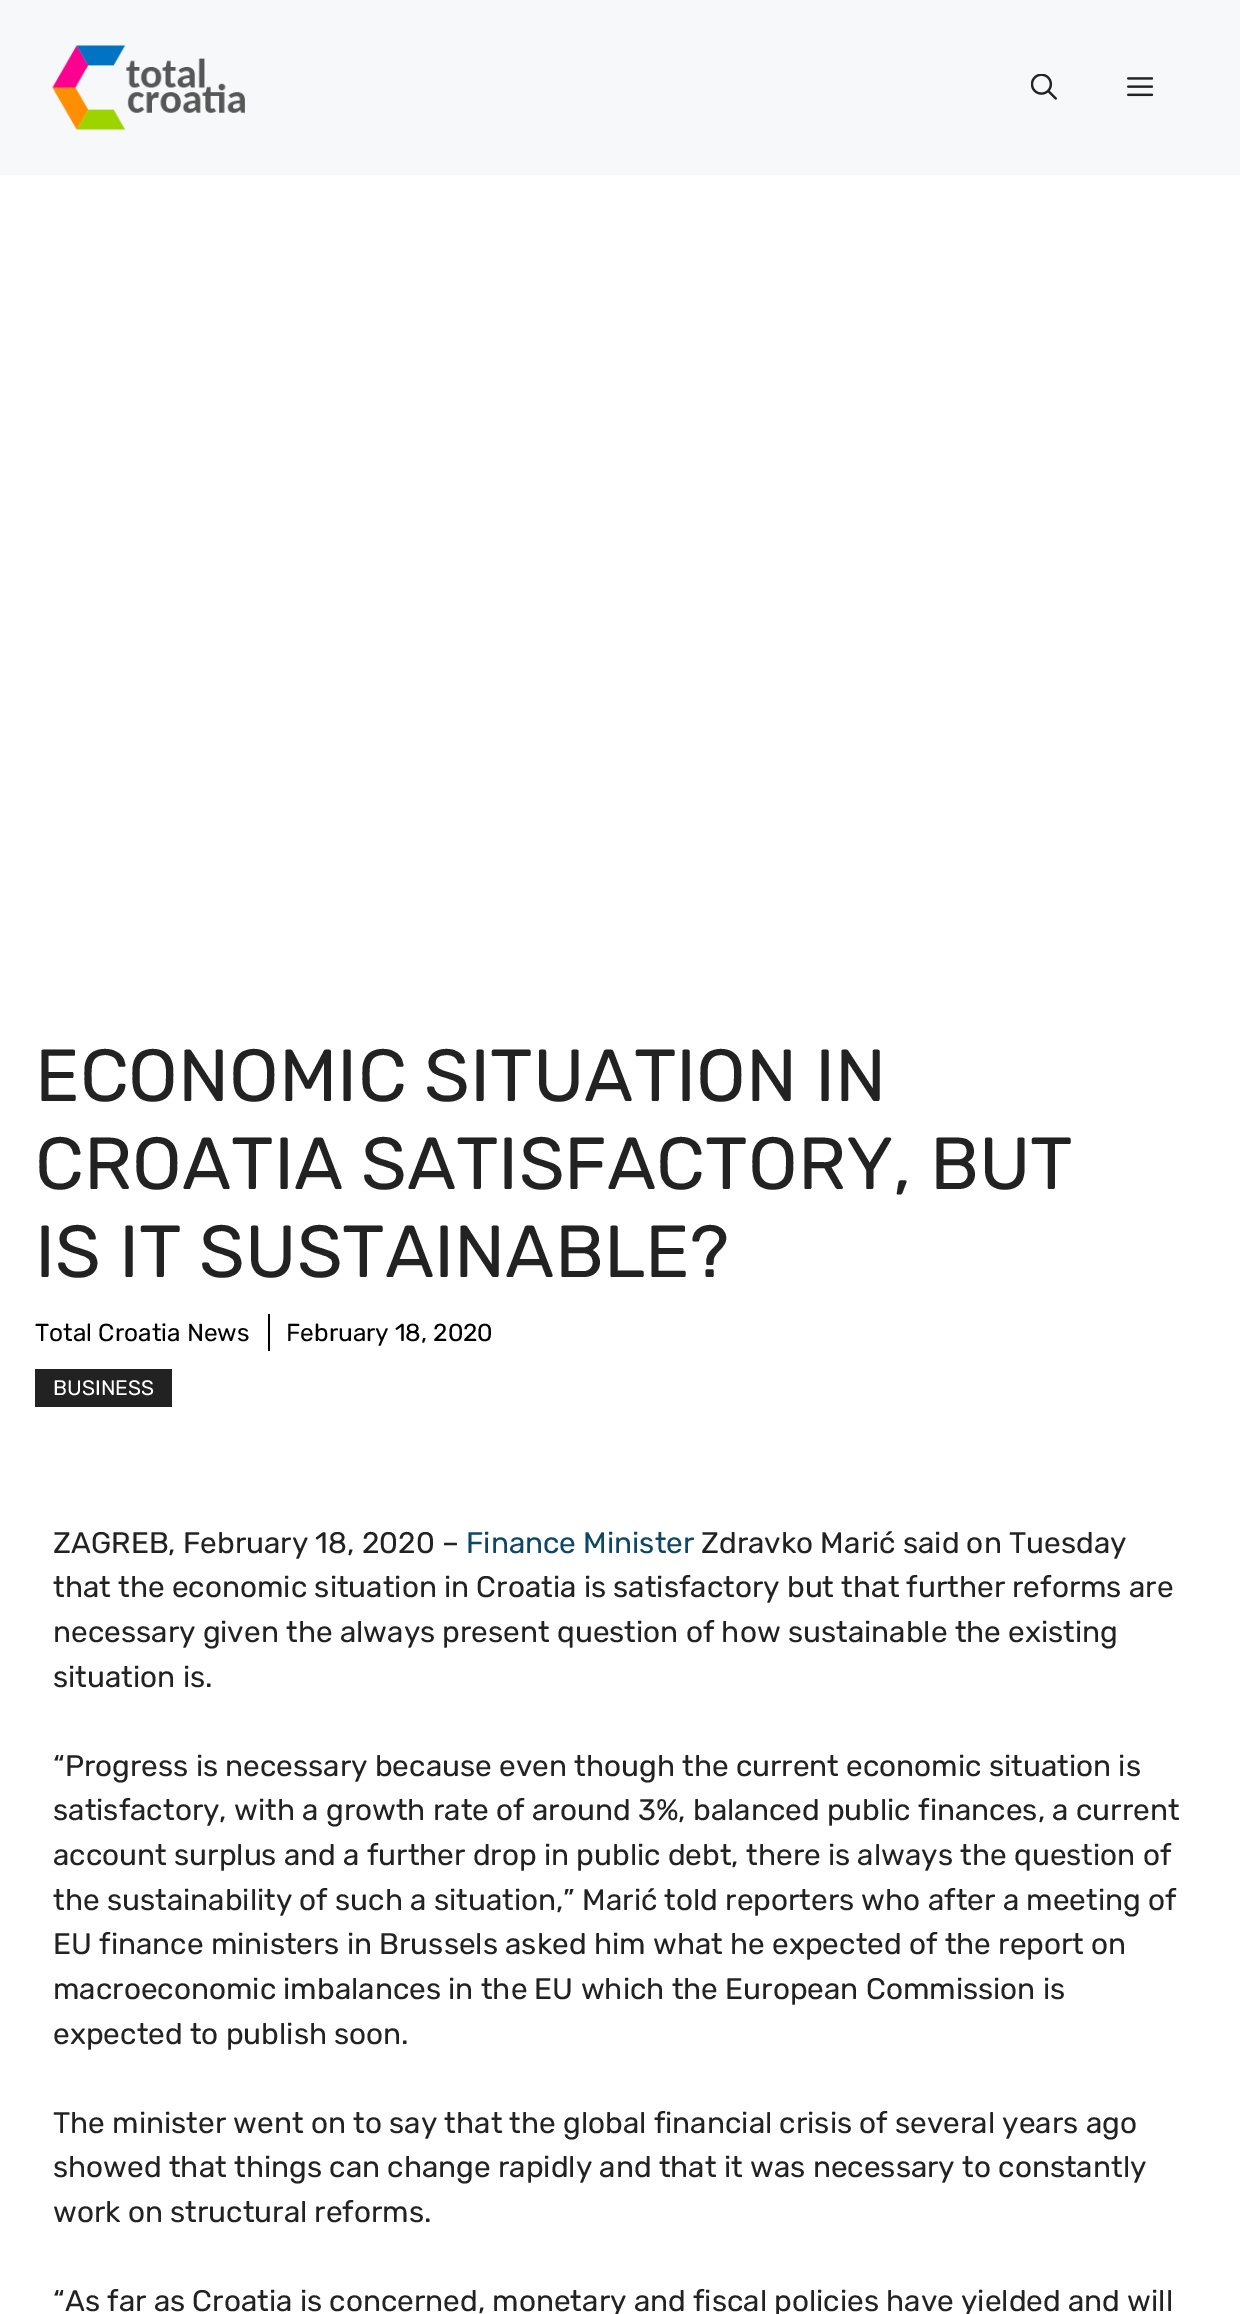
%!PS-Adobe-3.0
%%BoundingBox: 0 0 1240 2314
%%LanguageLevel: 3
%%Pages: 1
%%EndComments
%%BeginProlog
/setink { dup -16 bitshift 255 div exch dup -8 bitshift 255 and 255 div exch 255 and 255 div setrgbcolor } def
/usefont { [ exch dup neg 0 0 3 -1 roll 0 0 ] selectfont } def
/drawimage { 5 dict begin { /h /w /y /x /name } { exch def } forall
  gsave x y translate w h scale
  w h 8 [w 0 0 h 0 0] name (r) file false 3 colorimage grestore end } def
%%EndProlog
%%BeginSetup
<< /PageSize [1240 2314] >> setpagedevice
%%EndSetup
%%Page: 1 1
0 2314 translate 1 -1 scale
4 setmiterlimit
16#FFFFFF setink
0 0 1240 2314 rectfill
16#F7F8F9 setink
0 0 1240 175 rectfill
(img1.raw) 52 45 193 85 drawimage
(img2.raw) 1031 74 26 26 drawimage
(img3.raw) 1127 77 26 20 drawimage
/Rubik-Regular 73.5 usefont
16#222222 setink
[
    [(ECONOMIC SITUATION IN) 35 1101]
    [(CROATIA SATISFACTORY, BUT) 35 1189]
    [(IS IT SUSTAINABLE?) 35 1277]
] { aload pop moveto show } forall
16#000000 setink
268 1314 2 37 rectfill
/Rubik-Regular 24.5 usefont
35 1341 moveto (Total Croatia News) show
286 1341 moveto (February 18, 2020) show
16#222222 setink
35 1369 137 38 rectfill
/Rubik-Regular 21 usefont
16#FFFFFF setink
53 1395 moveto (BUSINESS) show
/Rubik-Regular 29.75 usefont
16#222222 setink
53 1553 moveto (ZAGREB, February 18, 2020 –) show
16#0C4767 setink
466 1553 moveto (Finance Minister) show
16#222222 setink
[
    [(Zdravko Marić said on Tuesday) 701 1553]
    [(that the economic situation in Croatia is satisfactory but that further reforms are) 53 1597]
    [(necessary given the always present question of how sustainable the existing) 53 1642]
    [(situation is.) 53 1687]
    [(“Progress is necessary because even though the current economic situation is) 53 1776]
    [(satisfactory, with a growth rate of around 3%, balanced public finances, a current) 53 1820]
    [(account surplus and a further drop in public debt, there is always the question of) 53 1865]
    [(the sustainability of such a situation,” Marić told reporters who after a meeting of) 53 1910]
    [(EU finance ministers in Brussels asked him what he expected of the report on) 53 1954]
    [(macroeconomic imbalances in the EU which the European Commission is) 53 1999]
    [(expected to publish soon.) 53 2044]
    [(The minister went on to say that the global financial crisis of several years ago) 53 2133]
    [(showed that things can change rapidly and that it was necessary to constantly) 53 2177]
    [(work on structural reforms.) 53 2222]
    [(“As far as Croatia is concerned, monetary and fiscal policies have yielded and will) 53 2311]
] { aload pop moveto show } forall
showpage
%%EOF
